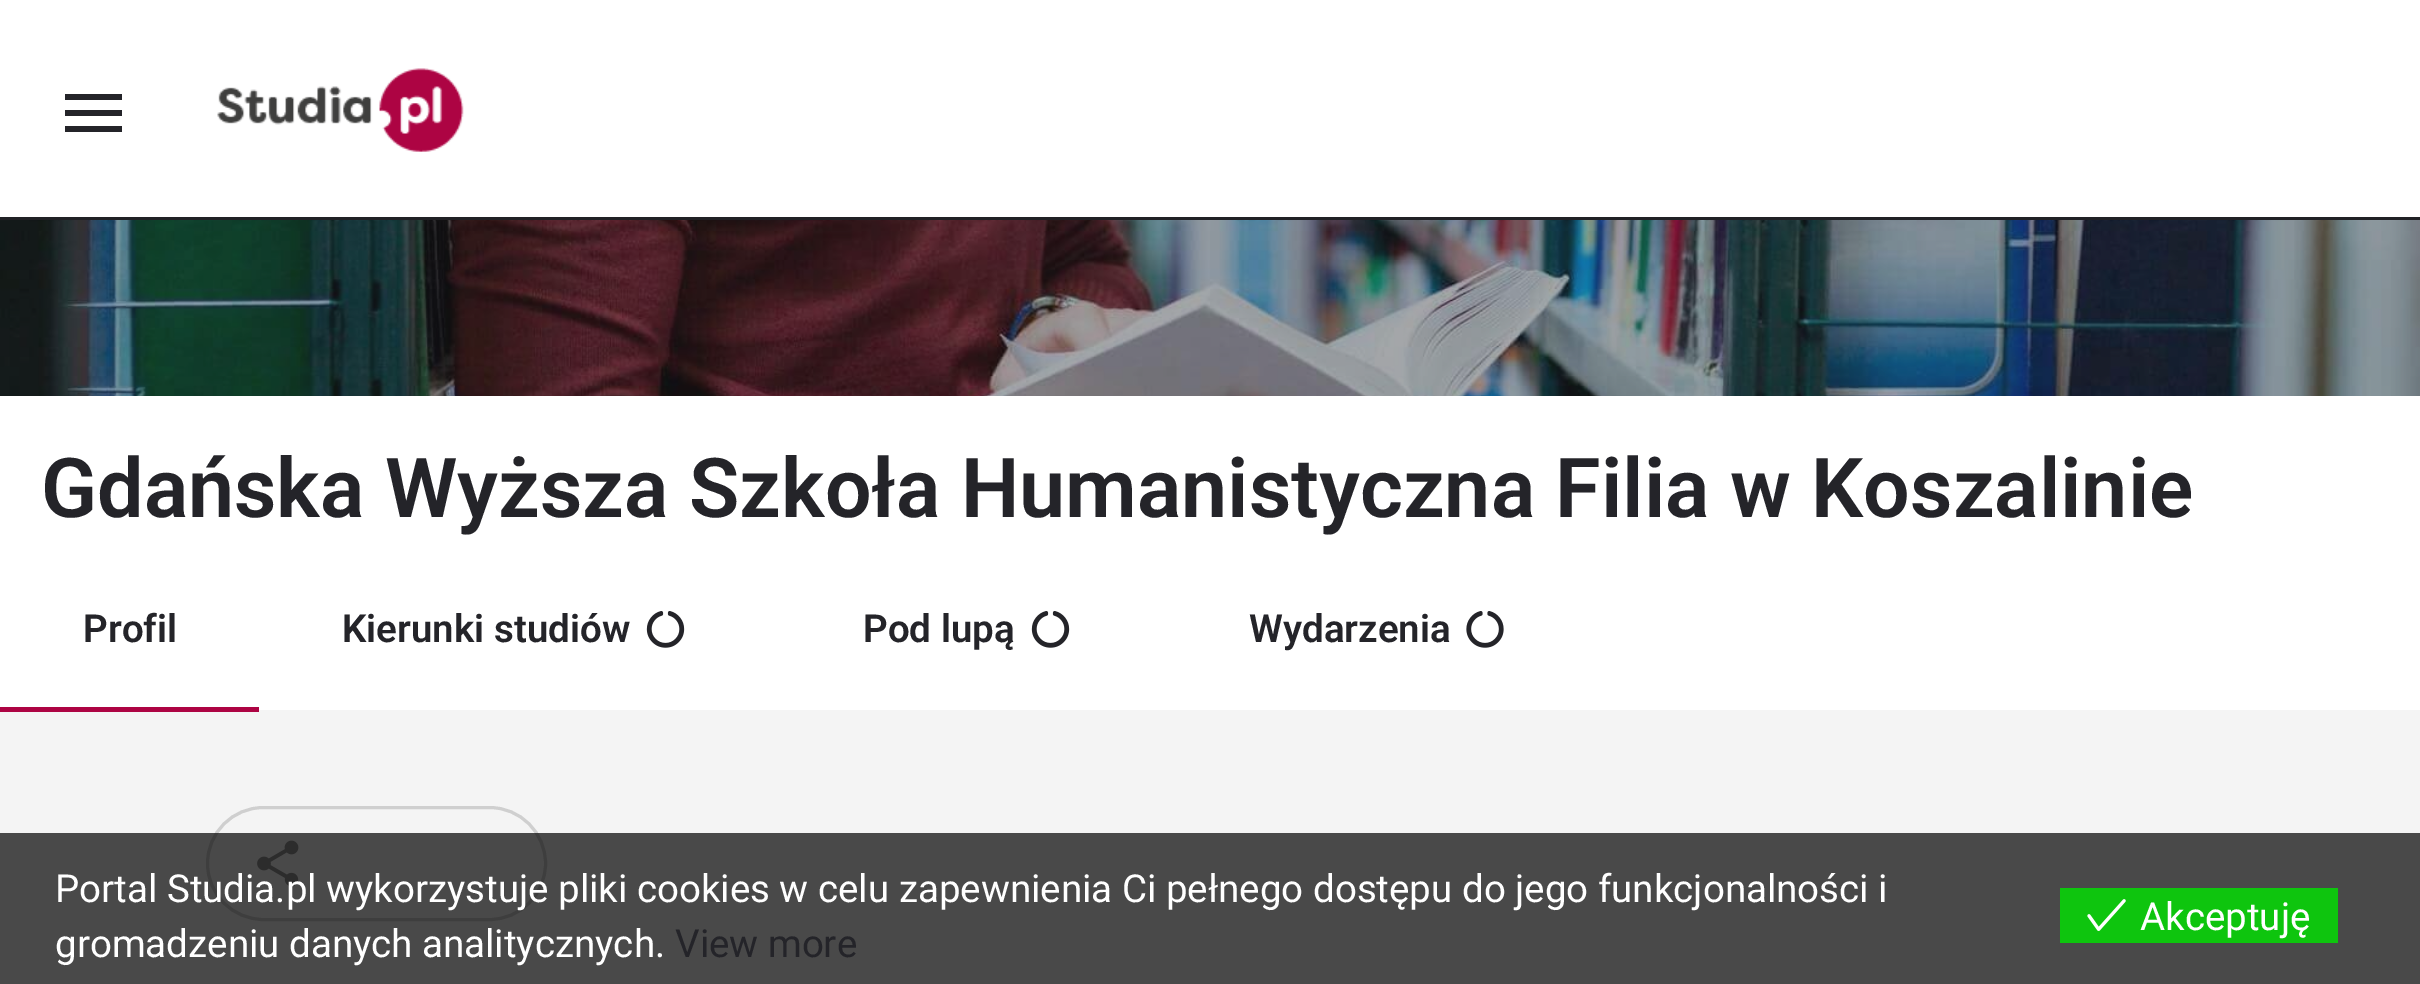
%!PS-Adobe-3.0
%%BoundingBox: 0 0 2420 984
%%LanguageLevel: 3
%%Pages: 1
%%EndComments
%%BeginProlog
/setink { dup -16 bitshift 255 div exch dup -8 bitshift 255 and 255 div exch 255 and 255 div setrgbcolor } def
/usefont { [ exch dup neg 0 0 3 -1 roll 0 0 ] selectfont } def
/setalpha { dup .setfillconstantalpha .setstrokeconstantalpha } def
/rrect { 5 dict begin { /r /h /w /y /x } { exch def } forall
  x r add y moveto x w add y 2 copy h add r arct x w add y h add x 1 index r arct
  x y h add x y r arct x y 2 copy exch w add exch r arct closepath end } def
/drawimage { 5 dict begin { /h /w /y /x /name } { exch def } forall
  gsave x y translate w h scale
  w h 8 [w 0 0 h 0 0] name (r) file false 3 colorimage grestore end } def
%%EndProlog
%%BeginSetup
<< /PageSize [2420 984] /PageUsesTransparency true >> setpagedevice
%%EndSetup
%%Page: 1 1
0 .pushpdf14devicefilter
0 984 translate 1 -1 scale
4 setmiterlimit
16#F4F4F4 setink
0 0 2420 984 rectfill
16#FFFFFF setink
0 0 2420 217 rectfill
16#202125 setink
0 217 2420 3 rectfill
16#242429 setink
65 94 moveto 122 94 lineto 122 100 lineto 65 100 lineto closepath 65 116 moveto 65 110 lineto 122 110 lineto 122 116 lineto closepath 65 132 moveto 65 126 lineto 122 126 lineto 122 132 lineto closepath fill
(img1.raw) 217 68 247 84 drawimage
(img2.raw) 0 220 2420 176 drawimage
16#FFFFFF setink
0 396 2420 314 rectfill
/Roboto-SemiBold 82.5 usefont
16#242429 setink
41 517 moveto (Gdańska Wyższa Szkoła Humanistyczna Filia w Koszalinie) show
/Roboto-SemiBold 38.5 usefont
83 642 moveto (Profil) show
16#AD0443 setink
0 707 259 5 rectfill
16#242429 setink
342 642 moveto (Kierunki studiów) show
(img3.raw) 646 611 39 37 drawimage
863 642 moveto (Pod lupą) show
(img3.raw) 1031 611 39 37 drawimage
1249 642 moveto (Wydarzenia) show
(img4.raw) 1466 611 38 37 drawimage
16#CFCFCF setink
3 setlinewidth
207.5 807.5 338 112 56 rrect stroke
(img5.raw) 257 840 42 47 drawimage
0.7 setalpha
16#000000 setink
0 833 2420 151 rectfill
/Roboto-Regular 38.5 usefont
1 setalpha
16#FFFFFF setink
55 902 moveto (Portal Studia.pl wykorzystuje pliki cookies w celu zapewnienia Ci pełnego dostępu do jego funkcjonalności i) show
55 957 moveto (gromadzeniu danych analitycznych.) show
16#242429 setink
675 957 moveto (View more) show
16#0EC50E setink
2060 888 278 55 rectfill
(img6.raw) 2087 899 39 32 drawimage
16#FFFFFF setink
2140 930 moveto (Akceptuję) show
.poppdf14devicefilter showpage
%%EOF
